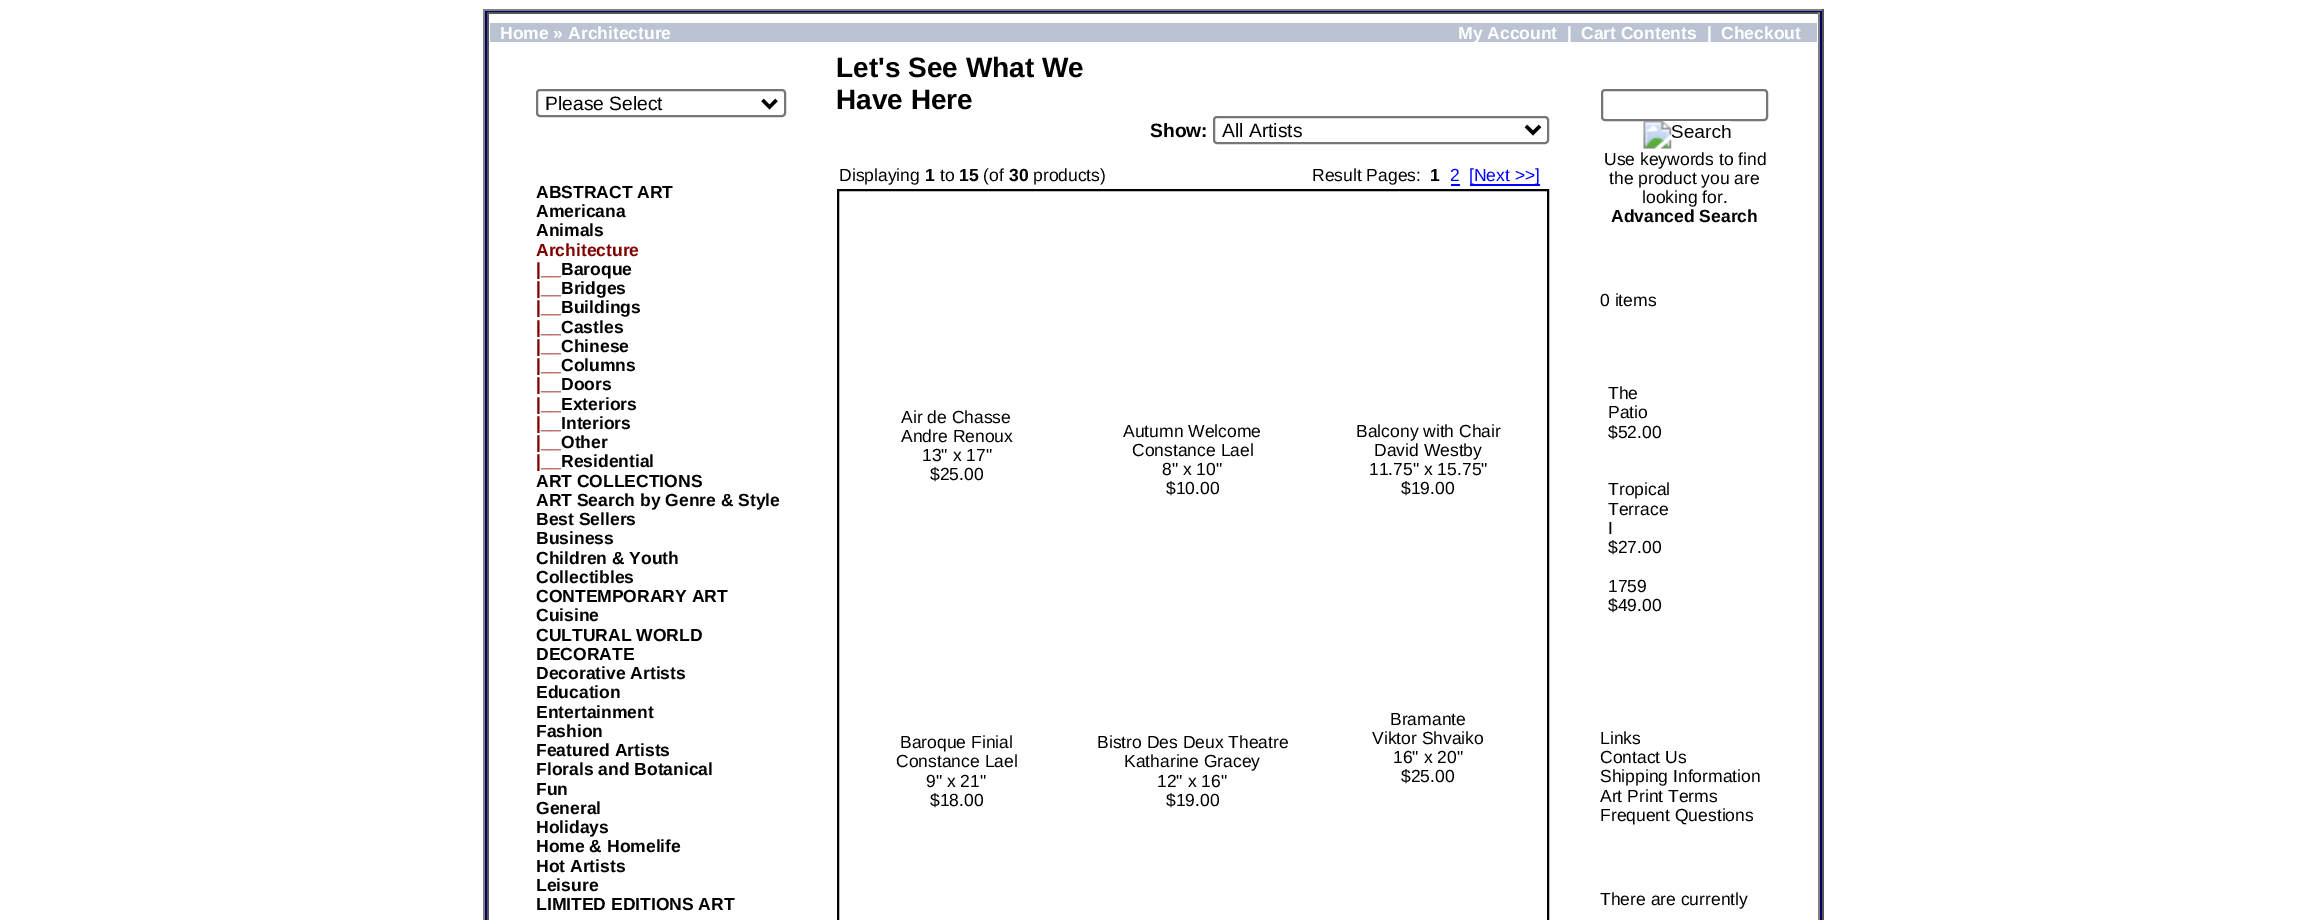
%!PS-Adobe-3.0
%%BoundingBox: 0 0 2306 920
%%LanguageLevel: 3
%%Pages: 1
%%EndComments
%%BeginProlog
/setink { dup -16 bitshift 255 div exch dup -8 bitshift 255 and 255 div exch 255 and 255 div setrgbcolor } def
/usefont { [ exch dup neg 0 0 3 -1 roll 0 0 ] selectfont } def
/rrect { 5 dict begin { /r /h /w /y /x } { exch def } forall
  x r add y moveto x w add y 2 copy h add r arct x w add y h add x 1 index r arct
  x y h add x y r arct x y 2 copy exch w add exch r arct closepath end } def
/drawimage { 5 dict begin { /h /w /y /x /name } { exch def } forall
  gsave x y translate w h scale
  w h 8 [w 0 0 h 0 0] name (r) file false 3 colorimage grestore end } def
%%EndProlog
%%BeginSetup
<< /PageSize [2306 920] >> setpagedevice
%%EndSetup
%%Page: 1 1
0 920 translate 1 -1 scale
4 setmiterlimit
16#FFFFFF setink
0 0 2306 920 rectfill
[
    [485 11 1337 909 16#000066]
    [483 9 1341 2 16#808080]
    [1822 9 2 911 16#555555]
    [483 9 2 911 16#808080]
    [489 14 1329 906 16#FFFFFF]
    [487 12 1333 2 16#555555]
    [1818 12 2 908 16#808080]
    [487 12 2 908 16#555555]
    [490 23 1327 19 16#BBC3D3]
] { aload pop setink rectfill } forall
/LiberationSans-Bold 17.5 usefont
16#FFFFFF setink
[
    [(Home » Architecture) 500 39]
    [(My Account) 1458 39]
    [(|) 1567 39]
    [(Cart Contents) 1581 39]
    [(|) 1707 39]
    [(Checkout) 1721 39]
] { aload pop moveto show } forall
16#767676 setink
2 setlinewidth
537 90 248 26 3 rrect stroke
16#000000 setink
3.5 setlinewidth
762.5 100 moveto 769.5 107 lineto 776.5 100 lineto stroke
/LiberationSans-Regular 19.25 usefont
545 110 moveto (Please Select) show
/LiberationSans-Bold 17.5 usefont
[
    [(ABSTRACT ART) 536 198]
    [(Americana) 536 217]
    [(Animals) 536 236]
] { aload pop moveto show } forall
16#800000 setink
536 256 moveto (Architecture) show
536 275 moveto (|__) show
16#000000 setink
561 275 moveto (Baroque) show
16#800000 setink
536 294 moveto (|__) show
16#000000 setink
561 294 moveto (Bridges) show
16#800000 setink
536 313 moveto (|__) show
16#000000 setink
561 313 moveto (Buildings) show
16#800000 setink
536 333 moveto (|__) show
16#000000 setink
561 333 moveto (Castles) show
16#800000 setink
536 352 moveto (|__) show
16#000000 setink
561 352 moveto (Chinese) show
16#800000 setink
536 371 moveto (|__) show
16#000000 setink
561 371 moveto (Columns) show
16#800000 setink
536 390 moveto (|__) show
16#000000 setink
561 390 moveto (Doors) show
16#800000 setink
536 410 moveto (|__) show
16#000000 setink
561 410 moveto (Exteriors) show
16#800000 setink
536 429 moveto (|__) show
16#000000 setink
561 429 moveto (Interiors) show
16#800000 setink
536 448 moveto (|__) show
16#000000 setink
561 448 moveto (Other) show
16#800000 setink
536 467 moveto (|__) show
16#000000 setink
[
    [(Residential) 561 467]
    [(ART COLLECTIONS) 536 487]
    [(ART Search by Genre & Style) 536 506]
    [(Best Sellers) 536 525]
    [(Business) 536 544]
    [(Children & Youth) 536 564]
    [(Collectibles) 536 583]
    [(CONTEMPORARY ART) 536 602]
    [(Cuisine) 536 621]
    [(CULTURAL WORLD) 536 641]
    [(DECORATE) 536 660]
    [(Decorative Artists) 536 679]
    [(Education) 536 698]
    [(Entertainment) 536 718]
    [(Fashion) 536 737]
    [(Featured Artists) 536 756]
    [(Florals and Botanical) 536 775]
    [(Fun) 536 795]
    [(General) 536 814]
    [(Holidays) 536 833]
    [(Home & Homelife) 536 852]
    [(Hot Artists) 536 872]
    [(Leisure) 536 891]
    [(LIMITED EDITIONS ART) 536 910]
] { aload pop moveto show } forall
/LiberationSans-Bold 28 usefont
836 77 moveto (Let's See What We) show
836 109 moveto (Have Here) show
/LiberationSans-Bold 19.25 usefont
1150 137 moveto (Show:) show
16#767676 setink
2 setlinewidth
1214 117 334 26 3 rrect stroke
16#000000 setink
3.5 setlinewidth
1526 126 moveto 1533 133 lineto 1540 126 lineto stroke
/LiberationSans-Regular 19.25 usefont
1222 137 moveto (All Artists) show
/LiberationSans-Regular 17.5 usefont
839 181 moveto (Displaying) show
/LiberationSans-Bold 17.5 usefont
925 181 moveto (1) show
/LiberationSans-Regular 17.5 usefont
940 181 moveto (to) show
/LiberationSans-Bold 17.5 usefont
959 181 moveto (15) show
/LiberationSans-Regular 17.5 usefont
983 181 moveto (\(of) show
/LiberationSans-Bold 17.5 usefont
1009 181 moveto (30) show
/LiberationSans-Regular 17.5 usefont
1033 181 moveto (products\)) show
1312 181 moveto (Result Pages:) show
/LiberationSans-Bold 17.5 usefont
1430 181 moveto (1) show
/LiberationSans-Regular 17.5 usefont
16#0000FF setink
1450 181 moveto (2) show
1451 184 9 2 rectfill
1470 184 70 2 rectfill
1469 181 moveto ([Next >>]) show
16#000000 setink
2 setlinewidth
838 190 710 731 rectstroke
[
    [(Air de Chasse) 901 423]
    [(Andre Renoux) 901 442]
    [(13" x 17") 922 461]
    [($25.00) 930 480]
    [(Autumn Welcome) 1123 437]
    [(Constance Lael) 1132 456]
    [(8" x 10") 1162 475]
    [($10.00) 1166 494]
    [(Balcony with Chair) 1356 437]
    [(David Westby) 1374 456]
    [(11.75" x 15.75") 1369 475]
    [($19.00) 1401 494]
    [(Baroque Finial) 900 748]
    [(Constance Lael) 896 767]
    [(9" x 21") 926 787]
    [($18.00) 930 806]
    [(Bistro Des Deux Theatre) 1097 748]
    [(Katharine Gracey) 1124 767]
    [(12" x 16") 1157 787]
    [($19.00) 1166 806]
    [(Bramante) 1390 725]
    [(Viktor Shvaiko) 1372 744]
    [(16" x 20") 1393 763]
    [($25.00) 1401 782]
] { aload pop moveto show } forall
16#767676 setink
1602 90 165 30 3 rrect stroke
(img1.raw) 1643 121 88 28 drawimage
16#000000 setink
[
    [(Use keywords to find) 1604 165]
    [(the product you are) 1609 184]
    [(looking for.) 1642 203]
] { aload pop moveto show } forall
/LiberationSans-Bold 17.5 usefont
1611 222 moveto (Advanced Search) show
/LiberationSans-Regular 17.5 usefont
[
    [(0 items) 1600 306]
    [(The) 1608 399]
    [(Patio) 1608 418]
    [($52.00) 1608 438]
    [(Tropical) 1608 495]
    [(Terrace) 1608 515]
    [(I) 1608 534]
    [($27.00) 1608 553]
    [(1759) 1608 592]
    [($49.00) 1608 611]
    [(Links) 1600 744]
    [(Contact Us) 1600 763]
    [(Shipping Information) 1600 782]
    [(Art Print Terms) 1600 802]
    [(Frequent Questions) 1600 821]
    [(There are currently) 1600 905]
] { aload pop moveto show } forall
showpage
%%EOF
